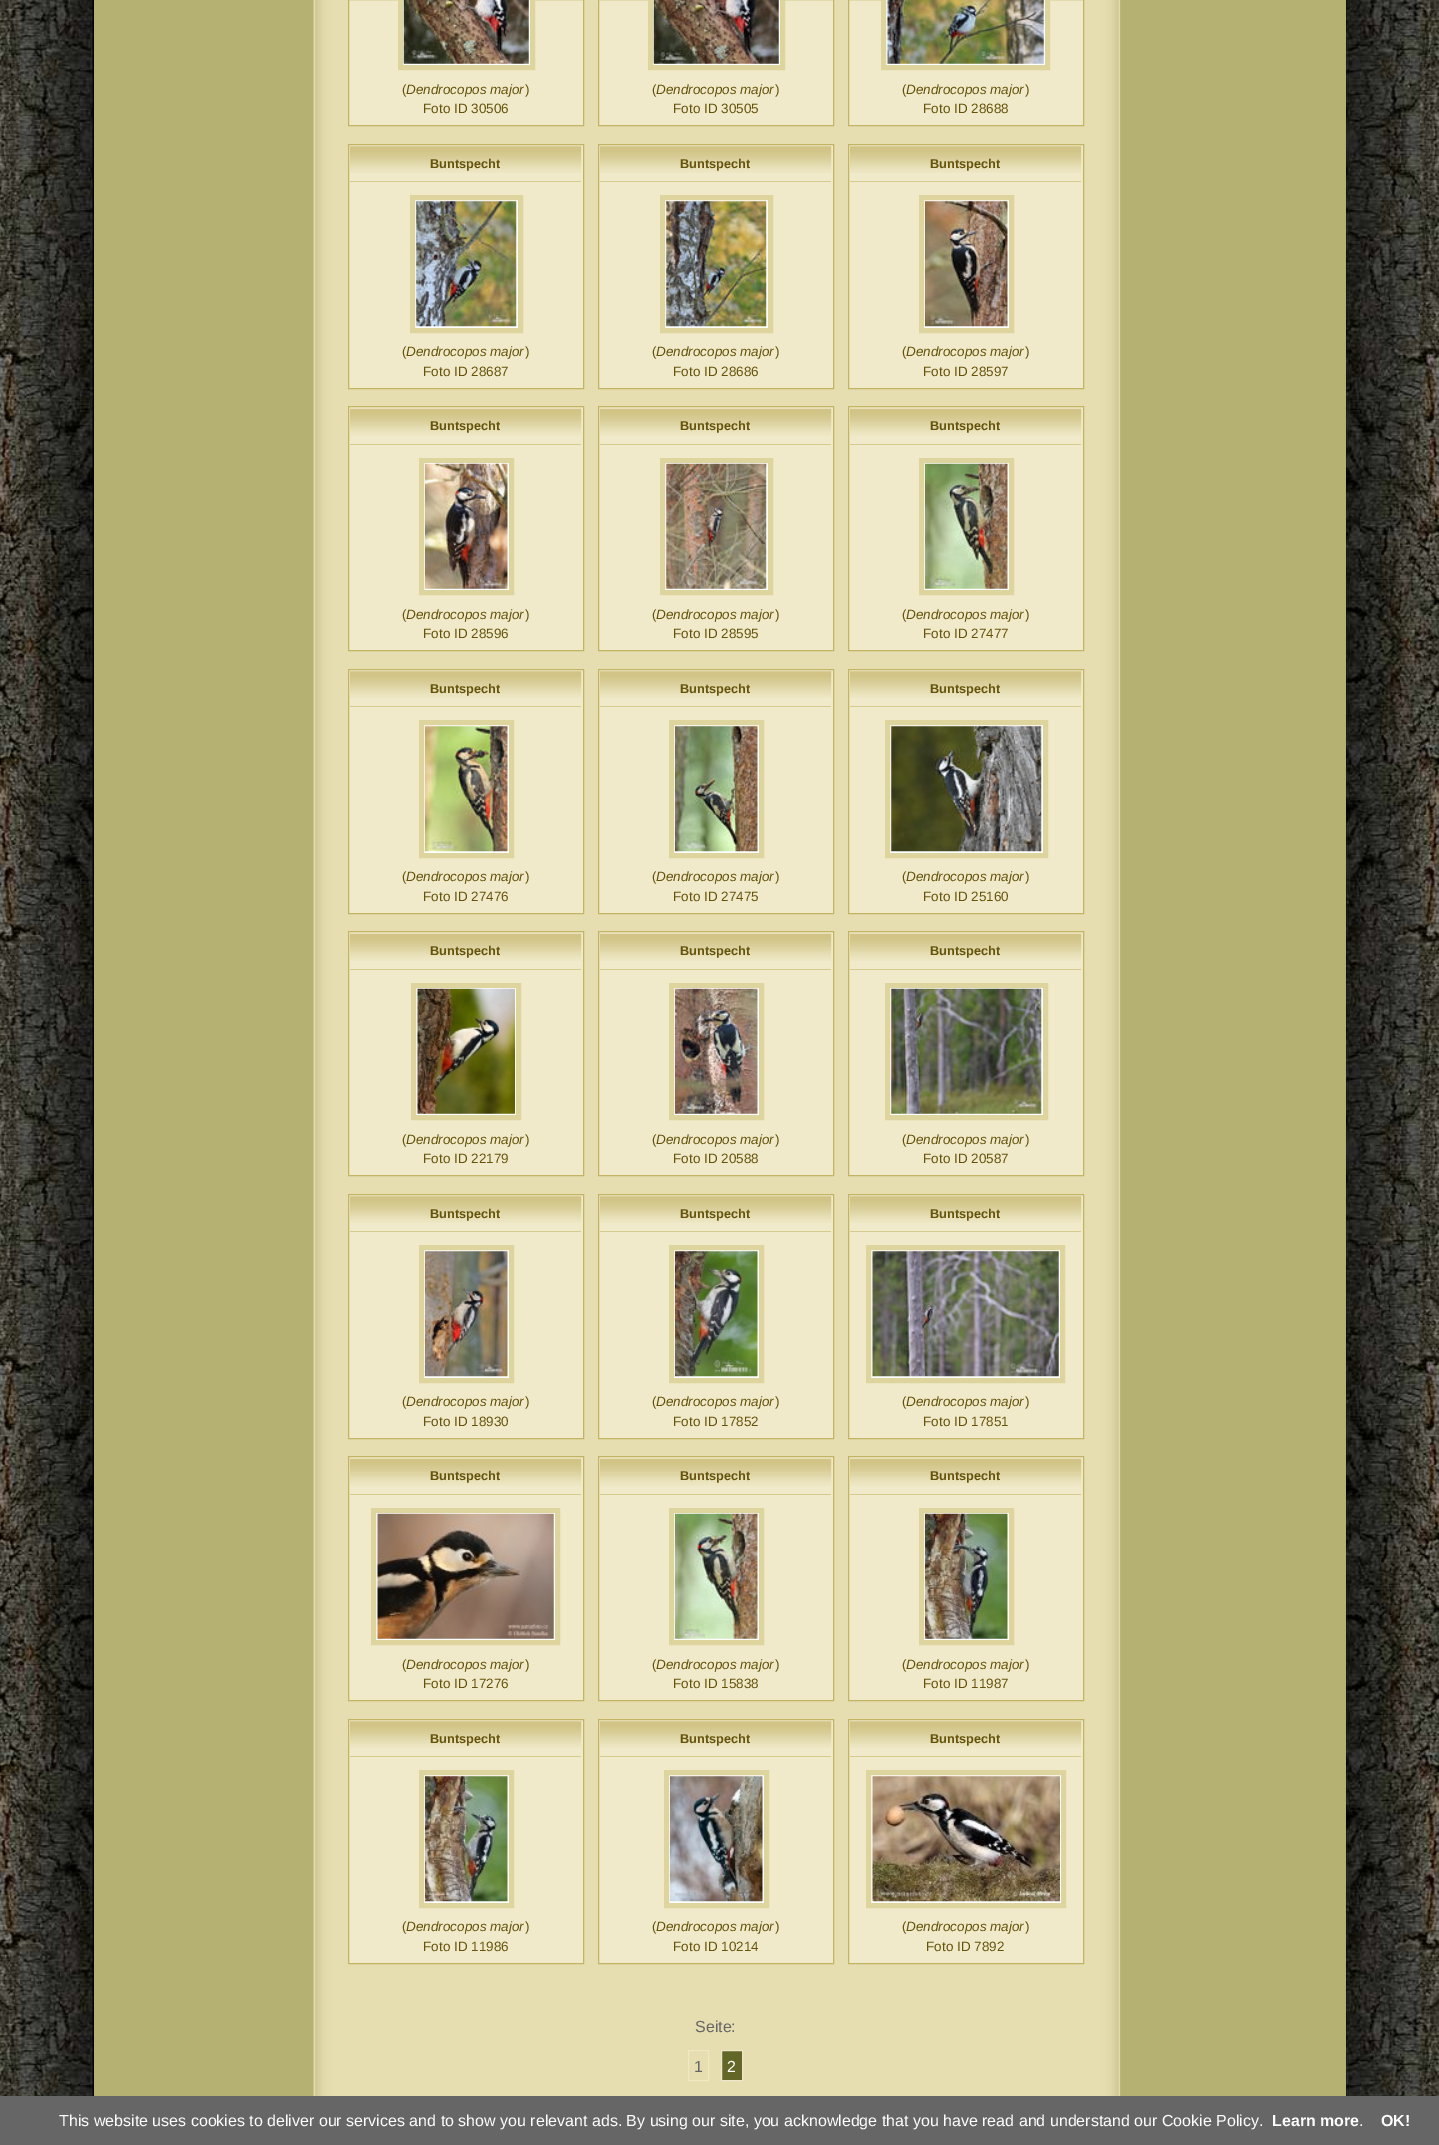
%!PS-Adobe-3.0
%%BoundingBox: 0 0 1439 2145
%%LanguageLevel: 3
%%Pages: 1
%%EndComments
%%BeginProlog
/setink { dup -16 bitshift 255 div exch dup -8 bitshift 255 and 255 div exch 255 and 255 div setrgbcolor } def
/usefont { [ exch dup neg 0 0 3 -1 roll 0 0 ] selectfont } def
/drawimage { 5 dict begin { /h /w /y /x /name } { exch def } forall
  gsave x y translate w h scale
  w h 8 [w 0 0 h 0 0] name (r) file false 3 colorimage grestore end } def
%%EndProlog
%%BeginSetup
<< /PageSize [1439 2145] >> setpagedevice
%%EndSetup
%%Page: 1 1
0 2145 translate 1 -1 scale
4 setmiterlimit
16#FFFFFF setink
0 0 1439 2145 rectfill
(img1.raw) 0 0 1439 2096 drawimage
(img2.raw) 95 0 219 2096 drawimage
16#B5B06C setink
1345 0 1 2096 rectfill
94 0 1 2096 rectfill
(img3.raw) 313 0 1032 2096 drawimage
16#F0EACA setink
348.5 -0.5 moveto 583.5 -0.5 lineto 583.5 125.5 lineto 348.5 125.5 lineto closepath gsave fill grestore
16#C2B463 setink
stroke
16#FFFFFF setink
400.5 -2.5 moveto 532.5 -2.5 lineto 532.5 67.5 lineto 400.5 67.5 lineto closepath gsave fill grestore
16#DED49E setink
5 setlinewidth
stroke
(img4.raw) 403 0 126 64 drawimage
/LiberationSans-Regular 13.5 usefont
16#65530B setink
402 94 moveto (\() show
/LiberationSans-Italic 13.5 usefont
406 94 moveto (Dendrocopos major) show
/LiberationSans-Regular 13.5 usefont
525 94 moveto (\)) show
423 113 moveto (Foto ID 30506) show
16#F0EACA setink
598.5 -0.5 moveto 833.5 -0.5 lineto 833.5 125.5 lineto 598.5 125.5 lineto closepath gsave fill grestore
16#C2B463 setink
1 setlinewidth
stroke
16#FFFFFF setink
650.5 -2.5 moveto 782.5 -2.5 lineto 782.5 67.5 lineto 650.5 67.5 lineto closepath gsave fill grestore
16#DED49E setink
5 setlinewidth
stroke
(img5.raw) 653 0 126 64 drawimage
16#65530B setink
652 94 moveto (\() show
/LiberationSans-Italic 13.5 usefont
656 94 moveto (Dendrocopos major) show
/LiberationSans-Regular 13.5 usefont
775 94 moveto (\)) show
673 113 moveto (Foto ID 30505) show
16#F0EACA setink
848.5 -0.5 moveto 1083.5 -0.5 lineto 1083.5 125.5 lineto 848.5 125.5 lineto closepath gsave fill grestore
16#C2B463 setink
1 setlinewidth
stroke
16#FFFFFF setink
883.5 -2.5 moveto 1047.5 -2.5 lineto 1047.5 67.5 lineto 883.5 67.5 lineto closepath gsave fill grestore
16#DED49E setink
5 setlinewidth
stroke
(img6.raw) 887 0 157 64 drawimage
16#65530B setink
902 94 moveto (\() show
/LiberationSans-Italic 13.5 usefont
906 94 moveto (Dendrocopos major) show
/LiberationSans-Regular 13.5 usefont
1025 94 moveto (\)) show
923 113 moveto (Foto ID 28688) show
16#F0EACA setink
348.5 144.5 moveto 583.5 144.5 lineto 583.5 388.5 lineto 348.5 388.5 lineto closepath gsave fill grestore
16#C2B463 setink
1 setlinewidth
stroke
(img7.raw) 350 146 232 27 drawimage
16#D6CB8F setink
350 181 231 1 rectfill
/LiberationSans-Bold 12.75 usefont
16#65530B setink
430 168 moveto (Buntspecht) show
16#FFFFFF setink
412.5 197.5 moveto 520.5 197.5 lineto 520.5 330.5 lineto 412.5 330.5 lineto closepath gsave fill grestore
16#DED49E setink
5 setlinewidth
stroke
(img8.raw) 416 201 101 126 drawimage
/LiberationSans-Regular 13.5 usefont
16#65530B setink
402 356 moveto (\() show
/LiberationSans-Italic 13.5 usefont
406 356 moveto (Dendrocopos major) show
/LiberationSans-Regular 13.5 usefont
525 356 moveto (\)) show
423 376 moveto (Foto ID 28687) show
16#F0EACA setink
598.5 144.5 moveto 833.5 144.5 lineto 833.5 388.5 lineto 598.5 388.5 lineto closepath gsave fill grestore
16#C2B463 setink
1 setlinewidth
stroke
(img7.raw) 600 146 232 27 drawimage
16#D6CB8F setink
600 181 231 1 rectfill
/LiberationSans-Bold 12.75 usefont
16#65530B setink
680 168 moveto (Buntspecht) show
16#FFFFFF setink
662.5 197.5 moveto 770.5 197.5 lineto 770.5 330.5 lineto 662.5 330.5 lineto closepath gsave fill grestore
16#DED49E setink
5 setlinewidth
stroke
(img9.raw) 666 201 101 126 drawimage
/LiberationSans-Regular 13.5 usefont
16#65530B setink
652 356 moveto (\() show
/LiberationSans-Italic 13.5 usefont
656 356 moveto (Dendrocopos major) show
/LiberationSans-Regular 13.5 usefont
775 356 moveto (\)) show
673 376 moveto (Foto ID 28686) show
16#F0EACA setink
848.5 144.5 moveto 1083.5 144.5 lineto 1083.5 388.5 lineto 848.5 388.5 lineto closepath gsave fill grestore
16#C2B463 setink
1 setlinewidth
stroke
(img7.raw) 850 146 232 27 drawimage
16#D6CB8F setink
850 181 231 1 rectfill
/LiberationSans-Bold 12.75 usefont
16#65530B setink
930 168 moveto (Buntspecht) show
16#FFFFFF setink
921.5 197.5 moveto 1011.5 197.5 lineto 1011.5 330.5 lineto 921.5 330.5 lineto closepath gsave fill grestore
16#DED49E setink
5 setlinewidth
stroke
(img10.raw) 925 201 83 126 drawimage
/LiberationSans-Regular 13.5 usefont
16#65530B setink
902 356 moveto (\() show
/LiberationSans-Italic 13.5 usefont
906 356 moveto (Dendrocopos major) show
/LiberationSans-Regular 13.5 usefont
1025 356 moveto (\)) show
923 376 moveto (Foto ID 28597) show
16#F0EACA setink
348.5 406.5 moveto 583.5 406.5 lineto 583.5 650.5 lineto 348.5 650.5 lineto closepath gsave fill grestore
16#C2B463 setink
1 setlinewidth
stroke
(img11.raw) 350 408 232 28 drawimage
16#D6CB8F setink
350 444 231 1 rectfill
/LiberationSans-Bold 12.75 usefont
16#65530B setink
430 430 moveto (Buntspecht) show
16#FFFFFF setink
421.5 460.5 moveto 511.5 460.5 lineto 511.5 592.5 lineto 421.5 592.5 lineto closepath gsave fill grestore
16#DED49E setink
5 setlinewidth
stroke
(img12.raw) 425 463 83 126 drawimage
/LiberationSans-Regular 13.5 usefont
16#65530B setink
402 619 moveto (\() show
/LiberationSans-Italic 13.5 usefont
406 619 moveto (Dendrocopos major) show
/LiberationSans-Regular 13.5 usefont
525 619 moveto (\)) show
423 638 moveto (Foto ID 28596) show
16#F0EACA setink
598.5 406.5 moveto 833.5 406.5 lineto 833.5 650.5 lineto 598.5 650.5 lineto closepath gsave fill grestore
16#C2B463 setink
1 setlinewidth
stroke
(img11.raw) 600 408 232 28 drawimage
16#D6CB8F setink
600 444 231 1 rectfill
/LiberationSans-Bold 12.75 usefont
16#65530B setink
680 430 moveto (Buntspecht) show
16#FFFFFF setink
662.5 460.5 moveto 770.5 460.5 lineto 770.5 592.5 lineto 662.5 592.5 lineto closepath gsave fill grestore
16#DED49E setink
5 setlinewidth
stroke
(img13.raw) 666 463 101 126 drawimage
/LiberationSans-Regular 13.5 usefont
16#65530B setink
652 619 moveto (\() show
/LiberationSans-Italic 13.5 usefont
656 619 moveto (Dendrocopos major) show
/LiberationSans-Regular 13.5 usefont
775 619 moveto (\)) show
673 638 moveto (Foto ID 28595) show
16#F0EACA setink
848.5 406.5 moveto 1083.5 406.5 lineto 1083.5 650.5 lineto 848.5 650.5 lineto closepath gsave fill grestore
16#C2B463 setink
1 setlinewidth
stroke
(img11.raw) 850 408 232 28 drawimage
16#D6CB8F setink
850 444 231 1 rectfill
/LiberationSans-Bold 12.75 usefont
16#65530B setink
930 430 moveto (Buntspecht) show
16#FFFFFF setink
921.5 460.5 moveto 1011.5 460.5 lineto 1011.5 592.5 lineto 921.5 592.5 lineto closepath gsave fill grestore
16#DED49E setink
5 setlinewidth
stroke
(img14.raw) 925 463 83 126 drawimage
/LiberationSans-Regular 13.5 usefont
16#65530B setink
902 619 moveto (\() show
/LiberationSans-Italic 13.5 usefont
906 619 moveto (Dendrocopos major) show
/LiberationSans-Regular 13.5 usefont
1025 619 moveto (\)) show
923 638 moveto (Foto ID 27477) show
16#F0EACA setink
348.5 669.5 moveto 583.5 669.5 lineto 583.5 913.5 lineto 348.5 913.5 lineto closepath gsave fill grestore
16#C2B463 setink
1 setlinewidth
stroke
(img7.raw) 350 671 232 27 drawimage
16#D6CB8F setink
350 706 231 1 rectfill
/LiberationSans-Bold 12.75 usefont
16#65530B setink
430 693 moveto (Buntspecht) show
16#FFFFFF setink
421.5 722.5 moveto 511.5 722.5 lineto 511.5 855.5 lineto 421.5 855.5 lineto closepath gsave fill grestore
16#DED49E setink
5 setlinewidth
stroke
(img15.raw) 425 726 83 126 drawimage
/LiberationSans-Regular 13.5 usefont
16#65530B setink
402 881 moveto (\() show
/LiberationSans-Italic 13.5 usefont
406 881 moveto (Dendrocopos major) show
/LiberationSans-Regular 13.5 usefont
525 881 moveto (\)) show
423 901 moveto (Foto ID 27476) show
16#F0EACA setink
598.5 669.5 moveto 833.5 669.5 lineto 833.5 913.5 lineto 598.5 913.5 lineto closepath gsave fill grestore
16#C2B463 setink
1 setlinewidth
stroke
(img7.raw) 600 671 232 27 drawimage
16#D6CB8F setink
600 706 231 1 rectfill
/LiberationSans-Bold 12.75 usefont
16#65530B setink
680 693 moveto (Buntspecht) show
16#FFFFFF setink
671.5 722.5 moveto 761.5 722.5 lineto 761.5 855.5 lineto 671.5 855.5 lineto closepath gsave fill grestore
16#DED49E setink
5 setlinewidth
stroke
(img16.raw) 675 726 83 126 drawimage
/LiberationSans-Regular 13.5 usefont
16#65530B setink
652 881 moveto (\() show
/LiberationSans-Italic 13.5 usefont
656 881 moveto (Dendrocopos major) show
/LiberationSans-Regular 13.5 usefont
775 881 moveto (\)) show
673 901 moveto (Foto ID 27475) show
16#F0EACA setink
848.5 669.5 moveto 1083.5 669.5 lineto 1083.5 913.5 lineto 848.5 913.5 lineto closepath gsave fill grestore
16#C2B463 setink
1 setlinewidth
stroke
(img7.raw) 850 671 232 27 drawimage
16#D6CB8F setink
850 706 231 1 rectfill
/LiberationSans-Bold 12.75 usefont
16#65530B setink
930 693 moveto (Buntspecht) show
16#FFFFFF setink
887.5 722.5 moveto 1045.5 722.5 lineto 1045.5 855.5 lineto 887.5 855.5 lineto closepath gsave fill grestore
16#DED49E setink
5 setlinewidth
stroke
(img17.raw) 891 726 151 126 drawimage
/LiberationSans-Regular 13.5 usefont
16#65530B setink
902 881 moveto (\() show
/LiberationSans-Italic 13.5 usefont
906 881 moveto (Dendrocopos major) show
/LiberationSans-Regular 13.5 usefont
1025 881 moveto (\)) show
923 901 moveto (Foto ID 25160) show
16#F0EACA setink
348.5 931.5 moveto 583.5 931.5 lineto 583.5 1175.5 lineto 348.5 1175.5 lineto closepath gsave fill grestore
16#C2B463 setink
1 setlinewidth
stroke
(img11.raw) 350 933 232 28 drawimage
16#D6CB8F setink
350 969 231 1 rectfill
/LiberationSans-Bold 12.75 usefont
16#65530B setink
430 955 moveto (Buntspecht) show
16#FFFFFF setink
413.5 985.5 moveto 518.5 985.5 lineto 518.5 1117.5 lineto 413.5 1117.5 lineto closepath gsave fill grestore
16#DED49E setink
5 setlinewidth
stroke
(img18.raw) 417 988 98 126 drawimage
/LiberationSans-Regular 13.5 usefont
16#65530B setink
402 1144 moveto (\() show
/LiberationSans-Italic 13.5 usefont
406 1144 moveto (Dendrocopos major) show
/LiberationSans-Regular 13.5 usefont
525 1144 moveto (\)) show
423 1163 moveto (Foto ID 22179) show
16#F0EACA setink
598.5 931.5 moveto 833.5 931.5 lineto 833.5 1175.5 lineto 598.5 1175.5 lineto closepath gsave fill grestore
16#C2B463 setink
1 setlinewidth
stroke
(img11.raw) 600 933 232 28 drawimage
16#D6CB8F setink
600 969 231 1 rectfill
/LiberationSans-Bold 12.75 usefont
16#65530B setink
680 955 moveto (Buntspecht) show
16#FFFFFF setink
671.5 985.5 moveto 761.5 985.5 lineto 761.5 1117.5 lineto 671.5 1117.5 lineto closepath gsave fill grestore
16#DED49E setink
5 setlinewidth
stroke
(img19.raw) 675 988 83 126 drawimage
/LiberationSans-Regular 13.5 usefont
16#65530B setink
652 1144 moveto (\() show
/LiberationSans-Italic 13.5 usefont
656 1144 moveto (Dendrocopos major) show
/LiberationSans-Regular 13.5 usefont
775 1144 moveto (\)) show
673 1163 moveto (Foto ID 20588) show
16#F0EACA setink
848.5 931.5 moveto 1083.5 931.5 lineto 1083.5 1175.5 lineto 848.5 1175.5 lineto closepath gsave fill grestore
16#C2B463 setink
1 setlinewidth
stroke
(img11.raw) 850 933 232 28 drawimage
16#D6CB8F setink
850 969 231 1 rectfill
/LiberationSans-Bold 12.75 usefont
16#65530B setink
930 955 moveto (Buntspecht) show
16#FFFFFF setink
887.5 985.5 moveto 1045.5 985.5 lineto 1045.5 1117.5 lineto 887.5 1117.5 lineto closepath gsave fill grestore
16#DED49E setink
5 setlinewidth
stroke
(img20.raw) 891 988 151 126 drawimage
/LiberationSans-Regular 13.5 usefont
16#65530B setink
902 1144 moveto (\() show
/LiberationSans-Italic 13.5 usefont
906 1144 moveto (Dendrocopos major) show
/LiberationSans-Regular 13.5 usefont
1025 1144 moveto (\)) show
923 1163 moveto (Foto ID 20587) show
16#F0EACA setink
348.5 1194.5 moveto 583.5 1194.5 lineto 583.5 1438.5 lineto 348.5 1438.5 lineto closepath gsave fill grestore
16#C2B463 setink
1 setlinewidth
stroke
(img7.raw) 350 1196 232 27 drawimage
16#D6CB8F setink
350 1231 231 1 rectfill
/LiberationSans-Bold 12.75 usefont
16#65530B setink
430 1218 moveto (Buntspecht) show
16#FFFFFF setink
421.5 1247.5 moveto 511.5 1247.5 lineto 511.5 1380.5 lineto 421.5 1380.5 lineto closepath gsave fill grestore
16#DED49E setink
5 setlinewidth
stroke
(img21.raw) 425 1251 83 126 drawimage
/LiberationSans-Regular 13.5 usefont
16#65530B setink
402 1406 moveto (\() show
/LiberationSans-Italic 13.5 usefont
406 1406 moveto (Dendrocopos major) show
/LiberationSans-Regular 13.5 usefont
525 1406 moveto (\)) show
423 1426 moveto (Foto ID 18930) show
16#F0EACA setink
598.5 1194.5 moveto 833.5 1194.5 lineto 833.5 1438.5 lineto 598.5 1438.5 lineto closepath gsave fill grestore
16#C2B463 setink
1 setlinewidth
stroke
(img7.raw) 600 1196 232 27 drawimage
16#D6CB8F setink
600 1231 231 1 rectfill
/LiberationSans-Bold 12.75 usefont
16#65530B setink
680 1218 moveto (Buntspecht) show
16#FFFFFF setink
671.5 1247.5 moveto 761.5 1247.5 lineto 761.5 1380.5 lineto 671.5 1380.5 lineto closepath gsave fill grestore
16#DED49E setink
5 setlinewidth
stroke
(img22.raw) 675 1251 83 126 drawimage
/LiberationSans-Regular 13.5 usefont
16#65530B setink
652 1406 moveto (\() show
/LiberationSans-Italic 13.5 usefont
656 1406 moveto (Dendrocopos major) show
/LiberationSans-Regular 13.5 usefont
775 1406 moveto (\)) show
673 1426 moveto (Foto ID 17852) show
16#F0EACA setink
848.5 1194.5 moveto 1083.5 1194.5 lineto 1083.5 1438.5 lineto 848.5 1438.5 lineto closepath gsave fill grestore
16#C2B463 setink
1 setlinewidth
stroke
(img7.raw) 850 1196 232 27 drawimage
16#D6CB8F setink
850 1231 231 1 rectfill
/LiberationSans-Bold 12.75 usefont
16#65530B setink
930 1218 moveto (Buntspecht) show
16#FFFFFF setink
868.5 1247.5 moveto 1062.5 1247.5 lineto 1062.5 1380.5 lineto 868.5 1380.5 lineto closepath gsave fill grestore
16#DED49E setink
5 setlinewidth
stroke
(img23.raw) 872 1251 187 126 drawimage
/LiberationSans-Regular 13.5 usefont
16#65530B setink
902 1406 moveto (\() show
/LiberationSans-Italic 13.5 usefont
906 1406 moveto (Dendrocopos major) show
/LiberationSans-Regular 13.5 usefont
1025 1406 moveto (\)) show
923 1426 moveto (Foto ID 17851) show
16#F0EACA setink
348.5 1456.5 moveto 583.5 1456.5 lineto 583.5 1700.5 lineto 348.5 1700.5 lineto closepath gsave fill grestore
16#C2B463 setink
1 setlinewidth
stroke
(img11.raw) 350 1458 232 28 drawimage
16#D6CB8F setink
350 1494 231 1 rectfill
/LiberationSans-Bold 12.75 usefont
16#65530B setink
430 1480 moveto (Buntspecht) show
16#FFFFFF setink
373.5 1510.5 moveto 557.5 1510.5 lineto 557.5 1642.5 lineto 373.5 1642.5 lineto closepath gsave fill grestore
16#DED49E setink
5 setlinewidth
stroke
(img24.raw) 377 1513 177 126 drawimage
/LiberationSans-Regular 13.5 usefont
16#65530B setink
402 1669 moveto (\() show
/LiberationSans-Italic 13.5 usefont
406 1669 moveto (Dendrocopos major) show
/LiberationSans-Regular 13.5 usefont
525 1669 moveto (\)) show
423 1688 moveto (Foto ID 17276) show
16#F0EACA setink
598.5 1456.5 moveto 833.5 1456.5 lineto 833.5 1700.5 lineto 598.5 1700.5 lineto closepath gsave fill grestore
16#C2B463 setink
1 setlinewidth
stroke
(img11.raw) 600 1458 232 28 drawimage
16#D6CB8F setink
600 1494 231 1 rectfill
/LiberationSans-Bold 12.75 usefont
16#65530B setink
680 1480 moveto (Buntspecht) show
16#FFFFFF setink
671.5 1510.5 moveto 761.5 1510.5 lineto 761.5 1642.5 lineto 671.5 1642.5 lineto closepath gsave fill grestore
16#DED49E setink
5 setlinewidth
stroke
(img25.raw) 675 1513 83 126 drawimage
/LiberationSans-Regular 13.5 usefont
16#65530B setink
652 1669 moveto (\() show
/LiberationSans-Italic 13.5 usefont
656 1669 moveto (Dendrocopos major) show
/LiberationSans-Regular 13.5 usefont
775 1669 moveto (\)) show
673 1688 moveto (Foto ID 15838) show
16#F0EACA setink
848.5 1456.5 moveto 1083.5 1456.5 lineto 1083.5 1700.5 lineto 848.5 1700.5 lineto closepath gsave fill grestore
16#C2B463 setink
1 setlinewidth
stroke
(img11.raw) 850 1458 232 28 drawimage
16#D6CB8F setink
850 1494 231 1 rectfill
/LiberationSans-Bold 12.75 usefont
16#65530B setink
930 1480 moveto (Buntspecht) show
16#FFFFFF setink
921.5 1510.5 moveto 1011.5 1510.5 lineto 1011.5 1642.5 lineto 921.5 1642.5 lineto closepath gsave fill grestore
16#DED49E setink
5 setlinewidth
stroke
(img26.raw) 925 1513 83 126 drawimage
/LiberationSans-Regular 13.5 usefont
16#65530B setink
902 1669 moveto (\() show
/LiberationSans-Italic 13.5 usefont
906 1669 moveto (Dendrocopos major) show
/LiberationSans-Regular 13.5 usefont
1025 1669 moveto (\)) show
923 1688 moveto (Foto ID 11987) show
16#F0EACA setink
348.5 1719.5 moveto 583.5 1719.5 lineto 583.5 1963.5 lineto 348.5 1963.5 lineto closepath gsave fill grestore
16#C2B463 setink
1 setlinewidth
stroke
(img7.raw) 350 1721 232 27 drawimage
16#D6CB8F setink
350 1756 231 1 rectfill
/LiberationSans-Bold 12.75 usefont
16#65530B setink
430 1743 moveto (Buntspecht) show
16#FFFFFF setink
421.5 1772.5 moveto 511.5 1772.5 lineto 511.5 1905.5 lineto 421.5 1905.5 lineto closepath gsave fill grestore
16#DED49E setink
5 setlinewidth
stroke
(img27.raw) 425 1776 83 126 drawimage
/LiberationSans-Regular 13.5 usefont
16#65530B setink
402 1931 moveto (\() show
/LiberationSans-Italic 13.5 usefont
406 1931 moveto (Dendrocopos major) show
/LiberationSans-Regular 13.5 usefont
525 1931 moveto (\)) show
423 1951 moveto (Foto ID 11986) show
16#F0EACA setink
598.5 1719.5 moveto 833.5 1719.5 lineto 833.5 1963.5 lineto 598.5 1963.5 lineto closepath gsave fill grestore
16#C2B463 setink
1 setlinewidth
stroke
(img7.raw) 600 1721 232 27 drawimage
16#D6CB8F setink
600 1756 231 1 rectfill
/LiberationSans-Bold 12.75 usefont
16#65530B setink
680 1743 moveto (Buntspecht) show
16#FFFFFF setink
666.5 1772.5 moveto 766.5 1772.5 lineto 766.5 1905.5 lineto 666.5 1905.5 lineto closepath gsave fill grestore
16#DED49E setink
5 setlinewidth
stroke
(img28.raw) 670 1776 93 126 drawimage
/LiberationSans-Regular 13.5 usefont
16#65530B setink
652 1931 moveto (\() show
/LiberationSans-Italic 13.5 usefont
656 1931 moveto (Dendrocopos major) show
/LiberationSans-Regular 13.5 usefont
775 1931 moveto (\)) show
673 1951 moveto (Foto ID 10214) show
16#F0EACA setink
848.5 1719.5 moveto 1083.5 1719.5 lineto 1083.5 1963.5 lineto 848.5 1963.5 lineto closepath gsave fill grestore
16#C2B463 setink
1 setlinewidth
stroke
(img7.raw) 850 1721 232 27 drawimage
16#D6CB8F setink
850 1756 231 1 rectfill
/LiberationSans-Bold 12.75 usefont
16#65530B setink
930 1743 moveto (Buntspecht) show
16#FFFFFF setink
868.5 1772.5 moveto 1063.5 1772.5 lineto 1063.5 1905.5 lineto 868.5 1905.5 lineto closepath gsave fill grestore
16#DED49E setink
5 setlinewidth
stroke
(img29.raw) 872 1776 188 126 drawimage
/LiberationSans-Regular 13.5 usefont
16#65530B setink
902 1931 moveto (\() show
/LiberationSans-Italic 13.5 usefont
906 1931 moveto (Dendrocopos major) show
/LiberationSans-Regular 13.5 usefont
1025 1931 moveto (\)) show
926 1951 moveto (Foto ID 7892) show
/LiberationSans-Regular 16 usefont
16#666666 setink
695 2032 moveto (Seite:) show
16#EFE8C1 setink
1 setlinewidth
688.5 2050.5 20 30 rectstroke
16#666666 setink
694 2072 moveto (1) show
16#626727 setink
721.5 2050.5 moveto 742.5 2050.5 lineto 742.5 2080.5 lineto 721.5 2080.5 lineto closepath gsave fill grestore
16#EDE6C8 setink
stroke
16#FFFFFF setink
727 2072 moveto (2) show
16#666666 setink
0 2096 1439 49 rectfill
16#FFFFFF setink
59 2126 moveto (This website uses cookies to deliver our services and to show you relevant ads. By using our site, you acknowledge that you have read and understand our Cookie Policy.) show
/LiberationSans-Bold 16 usefont
1272 2126 moveto (Learn more) show
/LiberationSans-Regular 16 usefont
1359 2126 moveto (.) show
/LiberationSans-Bold 16 usefont
1381 2126 moveto (OK!) show
showpage
%%EOF
